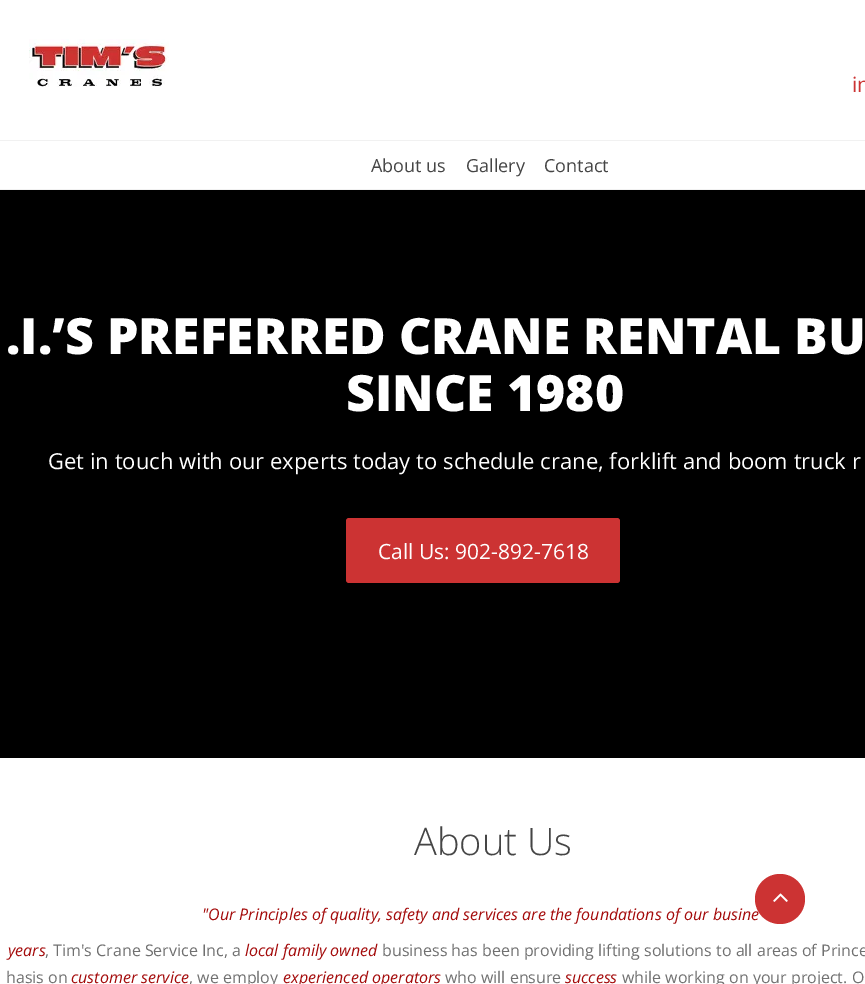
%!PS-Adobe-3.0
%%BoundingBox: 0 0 865 984
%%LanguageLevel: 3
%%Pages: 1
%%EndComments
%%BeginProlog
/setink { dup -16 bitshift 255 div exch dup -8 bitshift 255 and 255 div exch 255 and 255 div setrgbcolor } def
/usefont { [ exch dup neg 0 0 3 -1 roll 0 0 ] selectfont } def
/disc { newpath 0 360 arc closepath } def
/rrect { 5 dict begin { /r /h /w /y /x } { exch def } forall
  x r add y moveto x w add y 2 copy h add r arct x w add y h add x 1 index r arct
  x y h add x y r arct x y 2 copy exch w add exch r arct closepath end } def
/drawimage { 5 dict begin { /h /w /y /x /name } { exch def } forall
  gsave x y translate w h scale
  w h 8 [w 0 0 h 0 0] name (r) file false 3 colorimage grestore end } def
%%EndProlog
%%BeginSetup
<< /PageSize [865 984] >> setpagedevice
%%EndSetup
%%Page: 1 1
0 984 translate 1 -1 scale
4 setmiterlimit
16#FFFFFF setink
0 0 865 984 rectfill
(img1.raw) 29 39 140 48 drawimage
/OpenSans-Regular 21 usefont
16#CC3333 setink
852 92 moveto (in) show
16#F1F1F1 setink
0 140 865 1 rectfill
/OpenSans-Regular 18 usefont
16#454545 setink
[
    [(About us) 371 172]
    [(Gallery) 466 172]
    [(Contact) 544 172]
] { aload pop moveto show } forall
16#F1F1F1 setink
0 189 865 1 rectfill
16#000000 setink
0 190 865 568 rectfill
/OpenSans-ExtraBold 50 usefont
16#FFFFFF setink
6 354 moveto (.I.’S PREFERRED CRANE RENTAL BU) show
346 411 moveto (SINCE 1980) show
/OpenSans-Regular 22 usefont
48 469 moveto (Get in touch with our experts today to schedule crane, forklift and boom truck r) show
16#CC3333 setink
346 518 274 65 3 rrect fill
/OpenSans-Regular 21 usefont
16#FFFFFF setink
378 559 moveto (Call Us: 902-892-7618) show
/OpenSans-Light 38 usefont
16#454545 setink
414 855 moveto (About Us) show
/OpenSans-Italic 16 usefont
16#A40B0B setink
202 920 moveto ("Our Principles of quality, safety and services are the foundations of our busine) show
8 956 moveto (years) show
/OpenSans-Regular 16 usefont
16#707070 setink
45 956 moveto (, Tim's Crane Service Inc, a) show
/OpenSans-Italic 16 usefont
16#A40B0B setink
245 956 moveto (local family owned) show
/OpenSans-Regular 16 usefont
16#707070 setink
382 956 moveto (business has been providing lifting solutions to all areas of Prince) show
6 983 moveto (hasis on) show
/OpenSans-Italic 16 usefont
16#A40B0B setink
71 983 moveto (customer service) show
/OpenSans-Regular 16 usefont
16#707070 setink
189 983 moveto (, we employ) show
/OpenSans-Italic 16 usefont
16#A40B0B setink
283 983 moveto (experienced operators) show
/OpenSans-Regular 16 usefont
16#707070 setink
445 983 moveto (who will ensure) show
/OpenSans-Italic 16 usefont
16#A40B0B setink
565 983 moveto (success) show
/OpenSans-Regular 16 usefont
16#707070 setink
622 983 moveto (while working on your project. O) show
16#CC3333 setink
780 899 25 disc fill
(img2.raw) 773 893 15 9 drawimage
showpage
%%EOF
